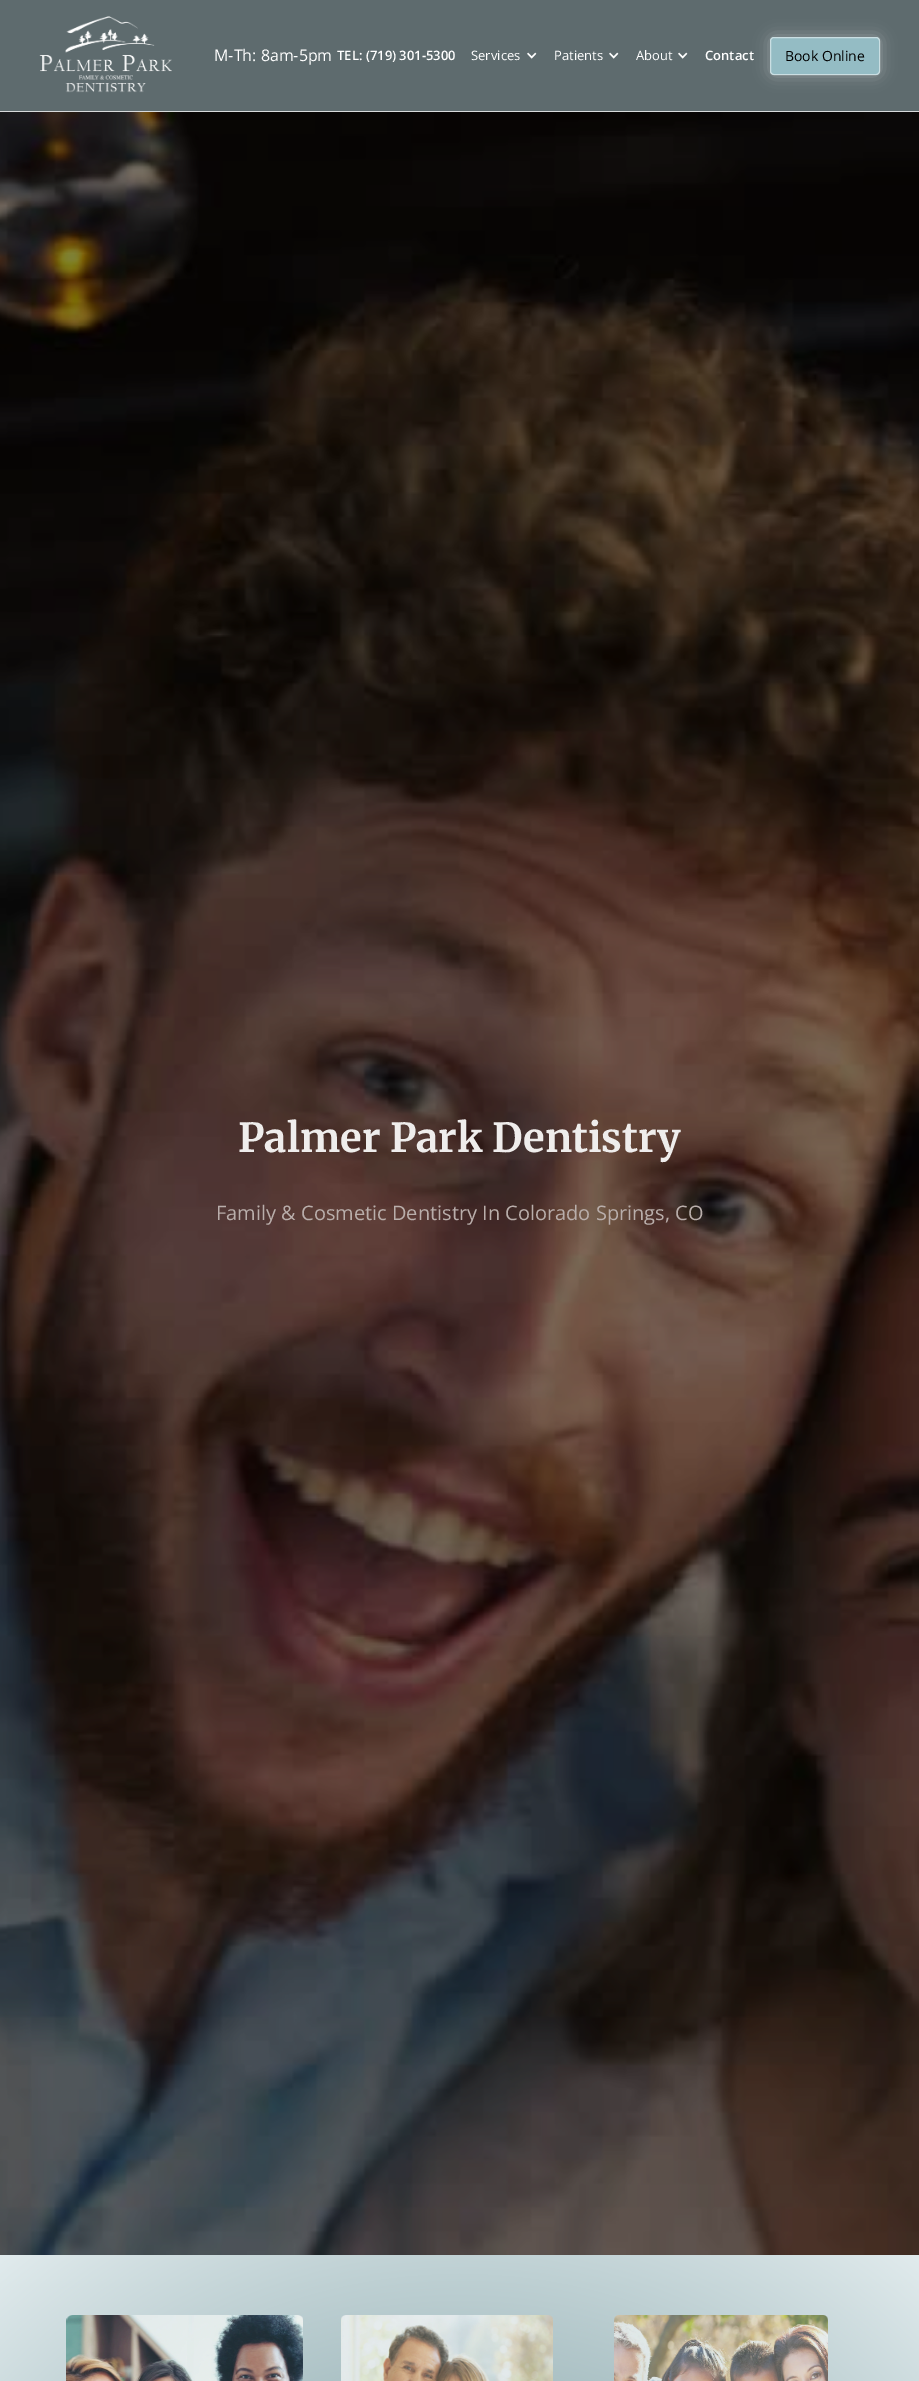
%!PS-Adobe-3.0
%%BoundingBox: 0 0 919 2381
%%LanguageLevel: 3
%%Pages: 1
%%EndComments
%%BeginProlog
/setink { dup -16 bitshift 255 div exch dup -8 bitshift 255 and 255 div exch 255 and 255 div setrgbcolor } def
/usefont { [ exch dup neg 0 0 3 -1 roll 0 0 ] selectfont } def
/setalpha { dup .setfillconstantalpha .setstrokeconstantalpha } def
/rrect { 5 dict begin { /r /h /w /y /x } { exch def } forall
  x r add y moveto x w add y 2 copy h add r arct x w add y h add x 1 index r arct
  x y h add x y r arct x y 2 copy exch w add exch r arct closepath end } def
/softshadow { 12 dict begin { /a /b /q /h /w /y /x } { exch def } forall gsave /was 0 def
  9 -2 -9 { dup b mul 4 div /e exch def 1 sub .425 mul 2.718 exch exp 1 add a .99 .min exch div /now exch def
    1 1 now sub 1 was sub div sub setalpha /was now def
    w h .min e 2 mul add 0 gt { x e sub y e sub w e 2 mul add h e 2 mul add
      q e add b .6 mul add w h .min 2 div e add .min 0 .max rrect fill } if } for grestore end } def
/drawimage { 5 dict begin { /h /w /y /x /name } { exch def } forall
  gsave x y translate w h scale
  w h 8 [w 0 0 h 0 0] name (r) file false 3 colorimage grestore end } def
%%EndProlog
%%BeginSetup
<< /PageSize [919 2381] /PageUsesTransparency true >> setpagedevice
%%EndSetup
%%Page: 1 1
0 .pushpdf14devicefilter
0 2381 translate 1 -1 scale
4 setmiterlimit
16#FFFFFF setink
0 0 919 2381 rectfill
16#5E6B6E setink
0 0 919 111 rectfill
16#D7DADB setink
0 111 919 1 rectfill
(img1.raw) 39 16 133 77 drawimage
/OpenSans-Regular 16 usefont
16#FFFFFF setink
214 61 moveto (M-Th: 8am-5pm) show
/OpenSans-SemiBold 13 usefont
337 60 moveto (TEL: \(719\) 301-5300) show
/OpenSans-Regular 13 usefont
471 60 moveto (Services) show
(img2.raw) 527 52 10 7 drawimage
554 60 moveto (Patients) show
(img2.raw) 609 52 10 7 drawimage
636 60 moveto (About) show
(img2.raw) 678 52 10 7 drawimage
/OpenSans-SemiBold 13 usefont
705 60 moveto (Contact) show
769 36 112 40 5 7.5 0.3 softshadow
16#94BCC4 setink
770 37 110 38 4 rrect fill
0.5 setalpha
16#FFFFFF setink
770.5 37.5 109 37 3.5 rrect stroke
/OpenSans-Regular 14 usefont
1 setalpha
16#000000 setink
785 61 moveto (Book Online) show
(img3.raw) 0 112 919 2143 drawimage
/Merriweather-Bold 40 usefont
16#EFEDEC setink
238 1152 moveto (Palmer Park Dentistry) show
/OpenSans-Regular 20 usefont
16#B9AEAB setink
216 1220 moveto (Family & Cosmetic Dentistry In Colorado Springs, CO) show
gsave 0 2255 moveto 919 2255 lineto 919 2381 lineto 0 2381 lineto closepath clip newpath 460 2819 translate 727 727 scale
<< /ShadingType 3 /ColorSpace /DeviceRGB /Coords [0 0 0 0 0 1] /Extend [true true] /Function << /FunctionType 2 /Domain [0 1] /C0 [0.341 0.494 0.525] /C1 [0.882 0.922 0.929] /N 1 >> >> shfill grestore
(img4.raw) 66 2315 237 66 drawimage
(img5.raw) 341 2315 212 66 drawimage
(img6.raw) 614 2315 214 66 drawimage
.poppdf14devicefilter showpage
%%EOF
